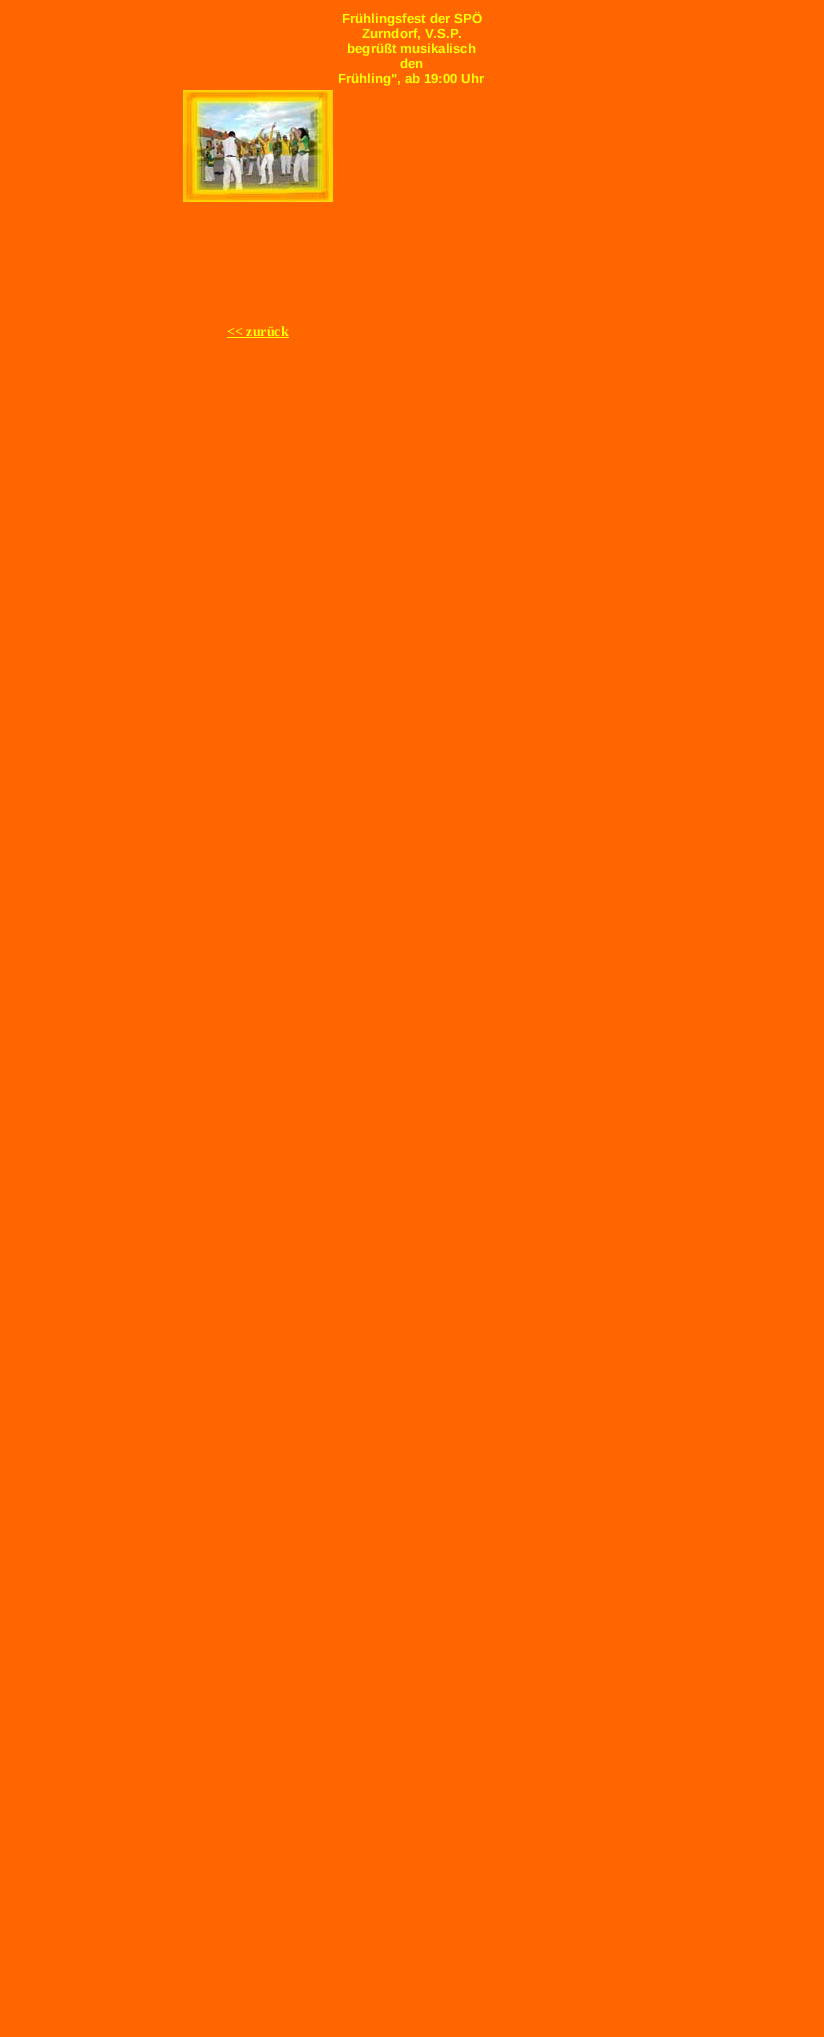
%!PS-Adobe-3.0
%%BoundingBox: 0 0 824 2037
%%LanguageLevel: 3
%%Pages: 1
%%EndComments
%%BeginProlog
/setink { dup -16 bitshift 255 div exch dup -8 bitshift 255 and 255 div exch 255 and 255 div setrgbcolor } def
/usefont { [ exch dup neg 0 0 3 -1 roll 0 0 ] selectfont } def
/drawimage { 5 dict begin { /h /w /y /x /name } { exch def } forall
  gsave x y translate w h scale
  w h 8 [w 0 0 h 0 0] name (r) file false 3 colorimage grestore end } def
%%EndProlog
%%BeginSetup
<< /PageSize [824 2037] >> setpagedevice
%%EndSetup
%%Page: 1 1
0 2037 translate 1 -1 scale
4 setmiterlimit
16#FF6600 setink
0 0 824 2037 rectfill
/LiberationSans-Bold 13.25 usefont
16#FFFF00 setink
[
    [(Frühlingsfest der SPÖ) 342 23]
    [(Zurndorf, V.S.P.) 362 38]
    [(begrüßt musikalisch) 347 53]
    [(den) 400 68]
    [(Frühling", ab 19:00 Uhr) 338 83]
] { aload pop moveto show } forall
(img1.raw) 183 90 150 112 drawimage
/LiberationSerif-Bold 14 usefont
227 336 moveto (<< zurück) show
227 337 62 1 rectfill
showpage
%%EOF
